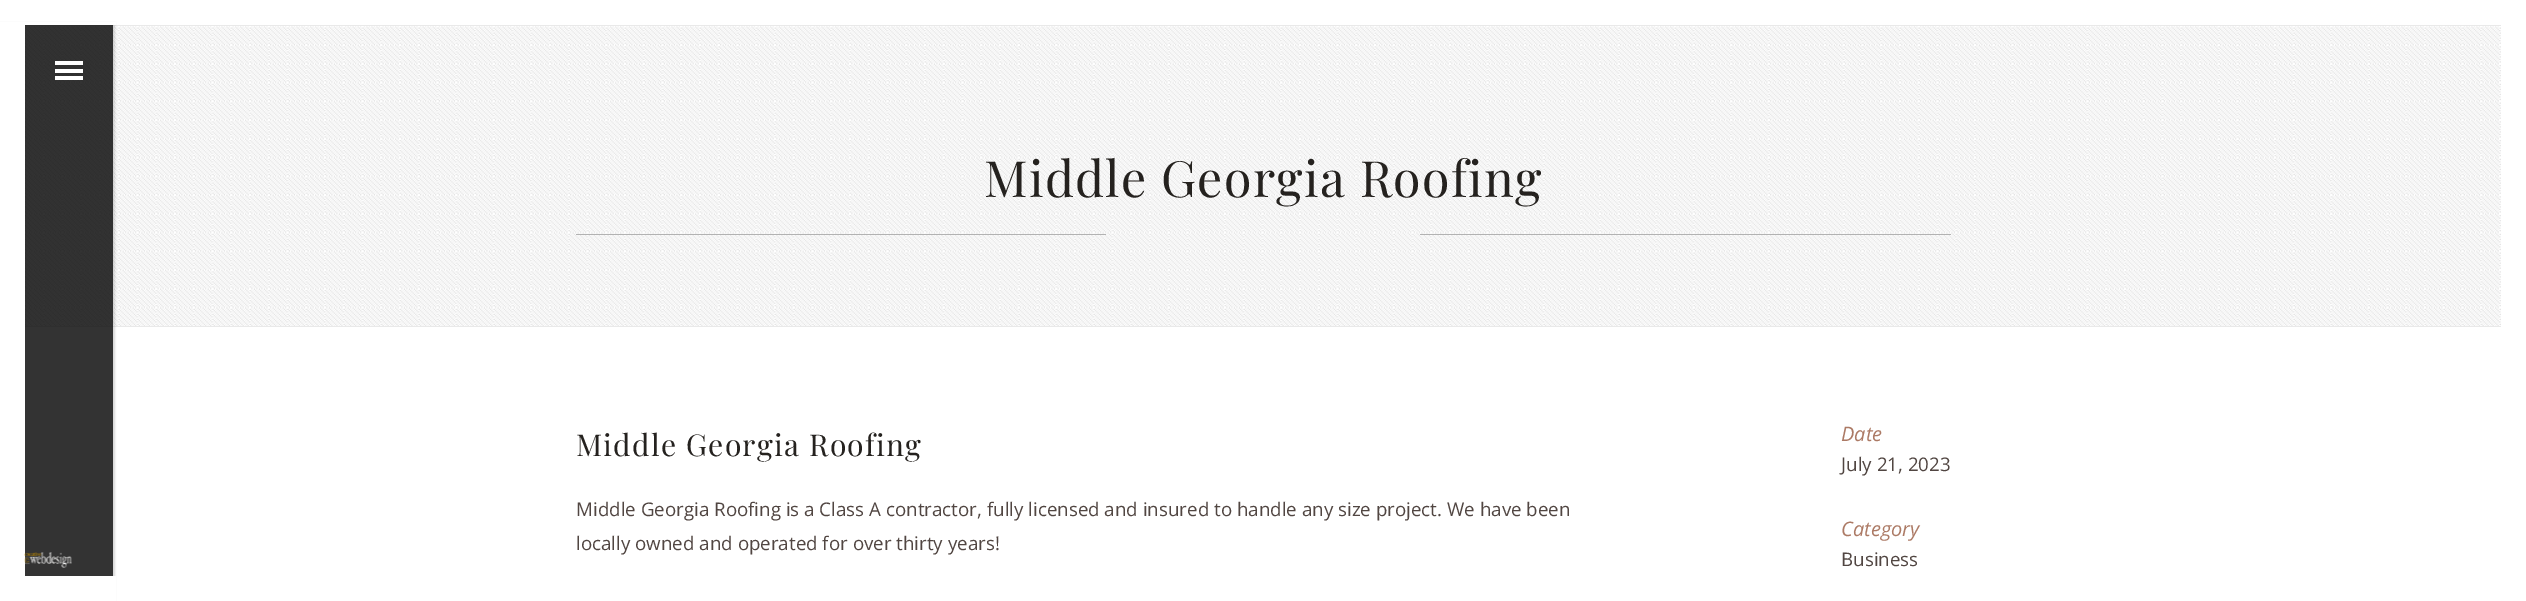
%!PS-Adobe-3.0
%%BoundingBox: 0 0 2526 601
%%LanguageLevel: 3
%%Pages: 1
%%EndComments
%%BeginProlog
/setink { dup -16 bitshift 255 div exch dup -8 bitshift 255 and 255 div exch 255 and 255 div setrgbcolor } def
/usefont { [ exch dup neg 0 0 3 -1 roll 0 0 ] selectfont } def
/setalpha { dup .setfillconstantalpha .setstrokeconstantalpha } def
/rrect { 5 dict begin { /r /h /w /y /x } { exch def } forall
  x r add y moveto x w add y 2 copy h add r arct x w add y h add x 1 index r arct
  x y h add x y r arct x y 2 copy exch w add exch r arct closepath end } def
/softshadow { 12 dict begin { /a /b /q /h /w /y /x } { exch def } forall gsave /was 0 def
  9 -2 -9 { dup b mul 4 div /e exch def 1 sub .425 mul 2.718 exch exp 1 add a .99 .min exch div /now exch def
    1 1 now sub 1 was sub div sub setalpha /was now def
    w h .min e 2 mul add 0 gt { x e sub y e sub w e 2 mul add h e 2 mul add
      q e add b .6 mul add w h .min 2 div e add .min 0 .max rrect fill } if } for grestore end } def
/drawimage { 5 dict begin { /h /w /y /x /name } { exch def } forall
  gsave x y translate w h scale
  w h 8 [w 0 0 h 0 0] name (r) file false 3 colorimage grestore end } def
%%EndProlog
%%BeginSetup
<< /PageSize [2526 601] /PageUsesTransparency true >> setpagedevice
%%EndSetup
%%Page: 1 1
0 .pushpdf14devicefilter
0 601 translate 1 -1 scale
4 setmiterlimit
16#FFFFFF setink
0 0 2526 601 rectfill
16#E9E9E9 setink
25 25 2476 1 rectfill
25 326 2476 1 rectfill
(img1.raw) 25 26 2476 300 drawimage
gsave
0 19 moveto 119 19 lineto 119 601 lineto 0 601 lineto closepath -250 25 moveto 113 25 lineto 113 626 lineto -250 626 lineto closepath eoclip newpath
16#000000 setink
-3 23 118 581 0 1 0.15 softshadow
grestore
0.8 setalpha
[
    [25 25 88 551 16#000000]
] { aload pop setink rectfill } forall
1 setalpha
[
    [55 69 28 4 16#FFFFFF]
    [55 61 28 4 16#FFFFFF]
    [55 76 28 4 16#FFFFFF]
    [0 22 116 3 16#FFFFFF]
] { aload pop setink rectfill } forall
/PlayfairDisplay-Regular 50 usefont
16#25221F setink
984 197 moveto 1.25 0 (Middle Georgia Roofing) ashow
16#B2B2B2 setink
576 234 530 1 rectfill
1420 234 531 1 rectfill
/PlayfairDisplay-Regular 30 usefont
16#25221F setink
576 456 moveto 1.25 0 (Middle Georgia Roofing) ashow
/OpenSans-Regular 18.75 usefont
16#514642 setink
576 516 moveto (Middle Georgia Roofing is a Class A contractor, fully licensed and insured to handle any size project. We have been) show
576 550 moveto (locally owned and operated for over thirty years!) show
/OpenSans-Italic 20 usefont
16#AC7A65 setink
1841 441 moveto (Date) show
/OpenSans-Regular 18.75 usefont
16#514642 setink
1841 471 moveto (July 21, 2023) show
/OpenSans-Italic 20 usefont
16#AC7A65 setink
1841 536 moveto (Category) show
/OpenSans-Regular 18.75 usefont
16#514642 setink
1841 566 moveto (Business) show
16#FFFFFF setink
112 576 4 25 rectfill
(img2.raw) 24 552 48 16 drawimage
.poppdf14devicefilter showpage
%%EOF
